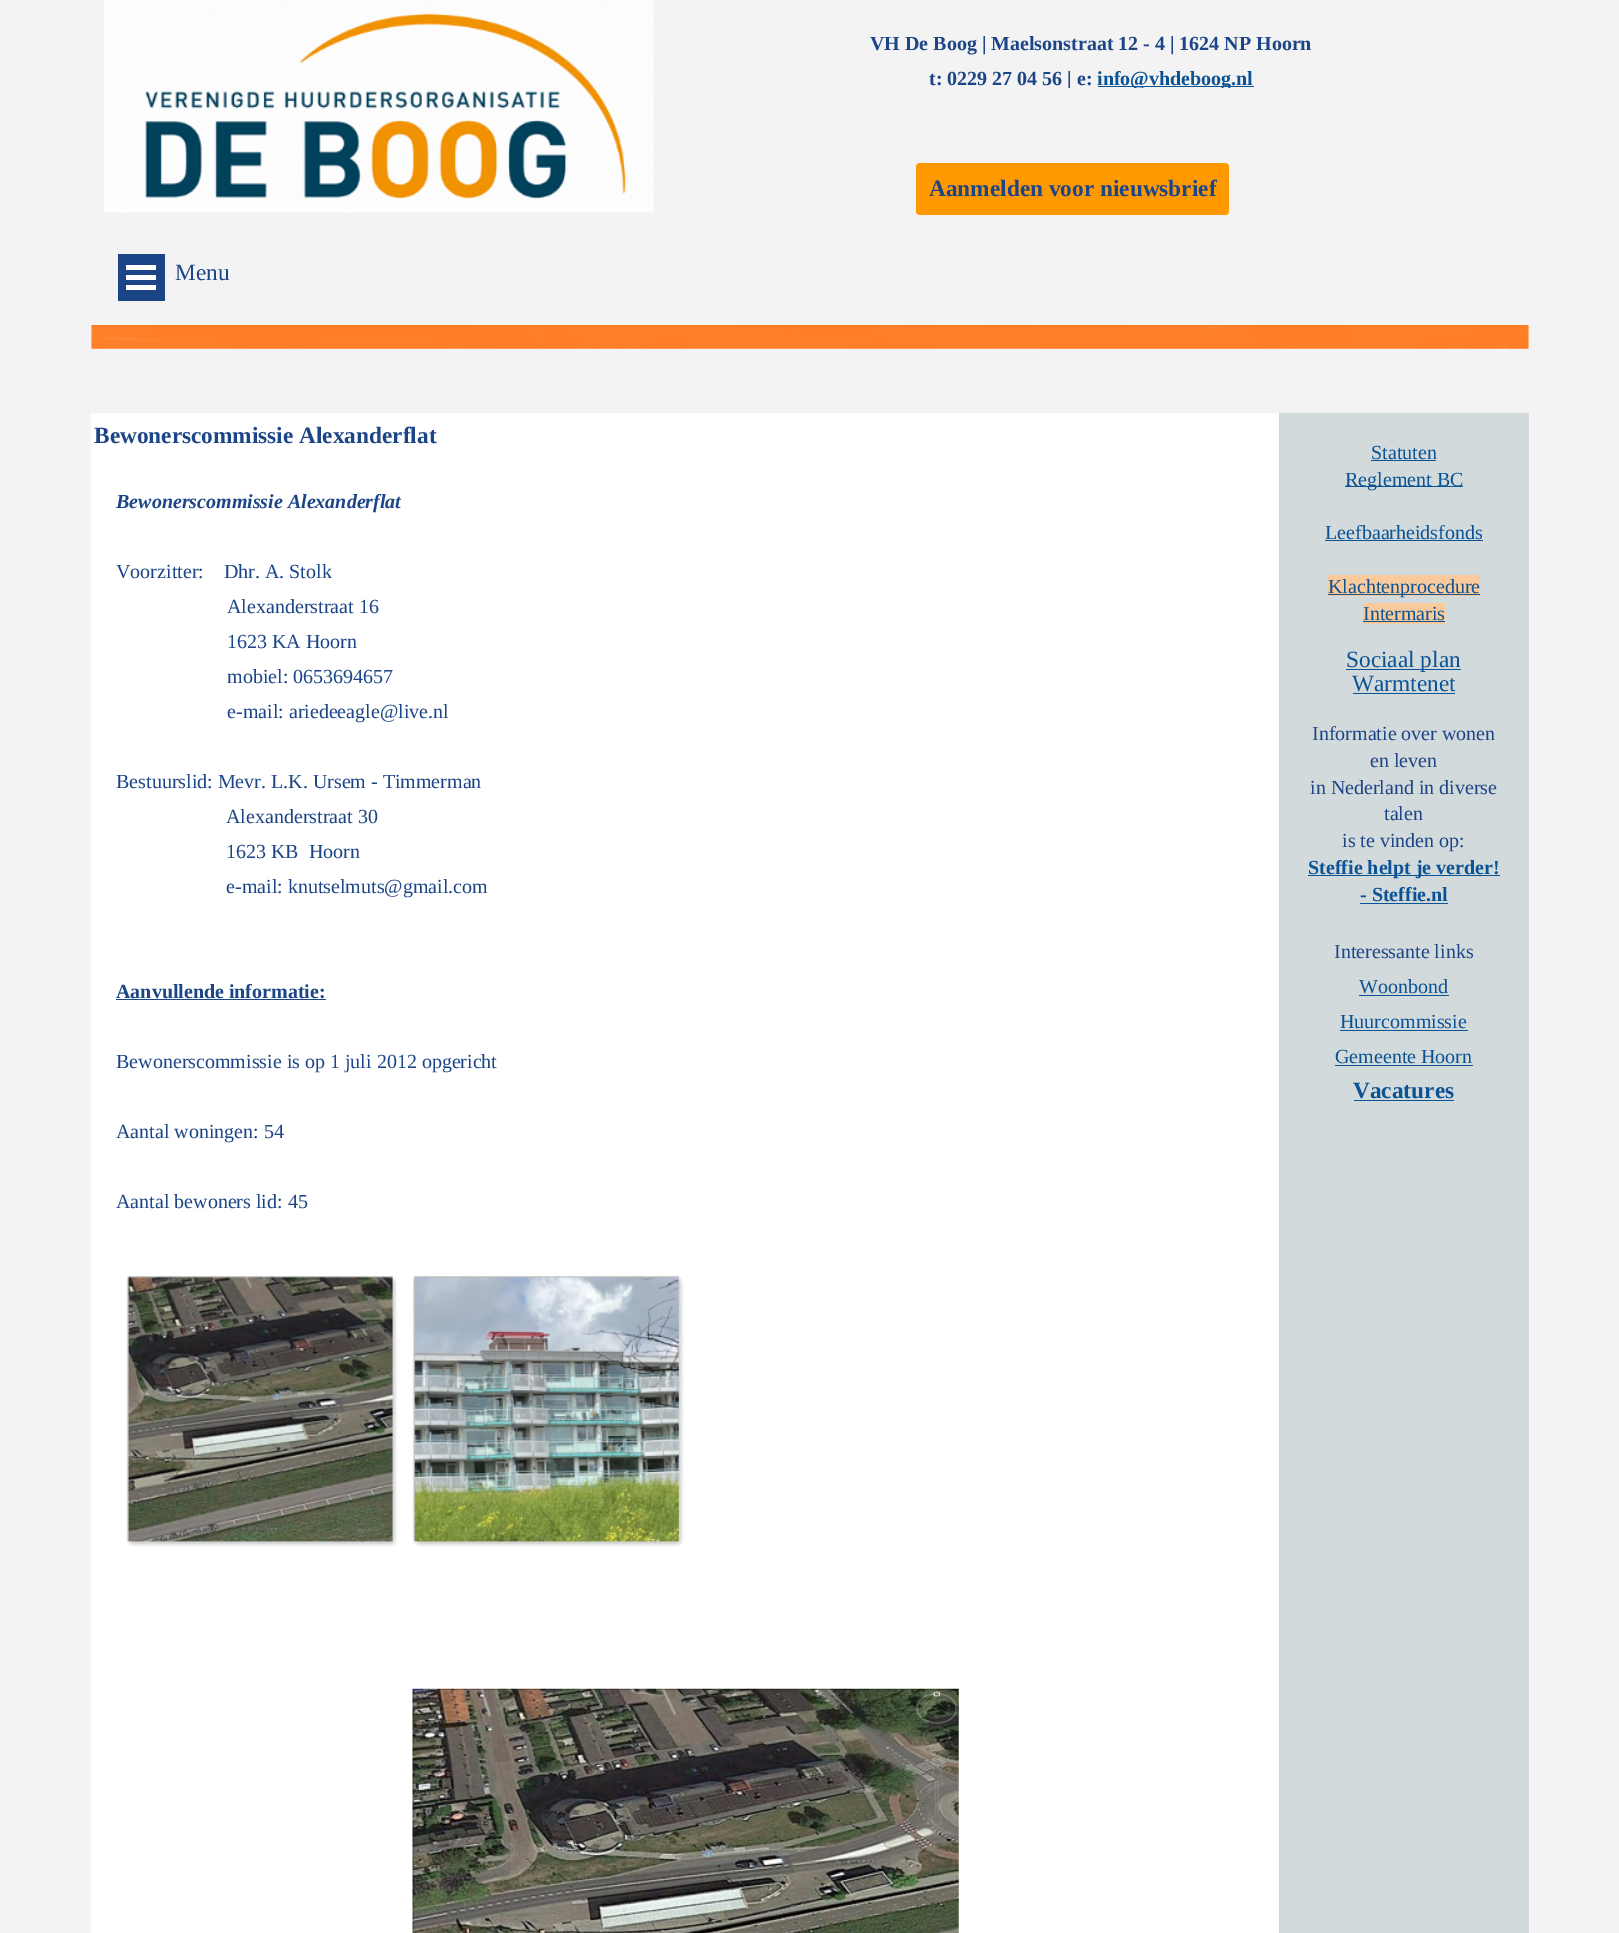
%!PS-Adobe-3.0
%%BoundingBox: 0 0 1619 1933
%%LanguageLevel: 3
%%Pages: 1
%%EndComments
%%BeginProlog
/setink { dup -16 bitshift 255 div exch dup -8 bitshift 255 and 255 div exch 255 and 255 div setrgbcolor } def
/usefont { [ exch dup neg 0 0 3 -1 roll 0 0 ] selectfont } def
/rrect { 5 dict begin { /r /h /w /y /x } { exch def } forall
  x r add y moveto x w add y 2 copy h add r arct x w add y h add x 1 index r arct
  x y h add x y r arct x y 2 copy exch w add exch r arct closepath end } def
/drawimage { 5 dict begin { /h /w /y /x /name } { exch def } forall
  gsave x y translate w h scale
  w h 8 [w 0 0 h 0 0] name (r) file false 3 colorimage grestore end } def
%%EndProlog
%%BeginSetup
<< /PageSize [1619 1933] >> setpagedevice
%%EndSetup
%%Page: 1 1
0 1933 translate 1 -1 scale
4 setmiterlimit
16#F3F3F3 setink
0 0 1619 1933 rectfill
(img1.raw) 104 0 550 213 drawimage
/LiberationSerif-Bold 20 usefont
16#1C4587 setink
870 50 moveto (VH De Boog | Maelsonstraat 12 - 4 | 1624 NP Hoorn) show
gsave
666 25 850 63 rectclip
929 85 moveto (t: 0229 27 04 56 | e:) show
grestore
16#0B5394 setink
1098 86 156 1 rectfill
gsave
666 25 850 63 rectclip
1097 85 moveto (info@vhdeboog.nl) show
grestore
16#FF9900 setink
916 163 313 52 4 rrect fill
/LiberationSerif-Bold 23.3 usefont
16#1C4587 setink
929 196 moveto (Aanmelden voor nieuwsbrief) show
[
    [118 254 47 47 16#1C4587]
    [126 265 30 5 16#FFFFFF]
    [126 275 30 5 16#FFFFFF]
    [126 285 30 5 16#FFFFFF]
] { aload pop setink rectfill } forall
/LiberationSerif-Regular 23.3 usefont
16#1C4587 setink
175 280 moveto (Menu) show
(img2.raw) 91 325 1438 24 drawimage
16#FFFFFF setink
91 413 1188 1520 rectfill
/LiberationSerif-Bold 23.3 usefont
16#1C4587 setink
94 443 moveto (Bewonerscommissie Alexanderflat) show
/LiberationSerif-BoldItalic 20 usefont
116 508 moveto (Bewonerscommissie Alexanderflat) show
/LiberationSerif-Regular 20 usefont
[
    [(Voorzitter:    Dhr. A. Stolk) 116 578]
    [(Alexanderstraat 16) 227 613]
    [(1623 KA Hoorn) 227 648]
    [(mobiel: 0653694657) 227 683]
    [(e-mail: ariedeeagle@live.nl) 227 718]
    [(Bestuurslid: Mevr. L.K. Ursem - Timmerman) 116 788]
    [(Alexanderstraat 30) 226 823]
    [(1623 KB  Hoorn) 226 858]
    [(e-mail: knutselmuts@gmail.com) 226 893]
] { aload pop moveto show } forall
/LiberationSerif-Bold 20 usefont
116 998 moveto (Aanvullende informatie:) show
116 999 210 1 rectfill
/LiberationSerif-Regular 20 usefont
[
    [(Bewonerscommissie is op 1 juli 2012 opgericht) 116 1068]
    [(Aantal woningen: 54) 116 1138]
    [(Aantal bewoners lid: 45) 116 1208]
] { aload pop moveto show } forall
(img3.raw) 126 1276 271 271 drawimage
(img4.raw) 412 1276 272 271 drawimage
(img5.raw) 412 1688 547 245 drawimage
16#D3DADC setink
1279 413 250 1520 rectfill
16#0B5394 setink
1371 459 moveto (Statuten) show
1371 460 65 1 rectfill
1345 486 118 1 rectfill
1345 486 moveto (Reglement BC) show
1325 539 moveto (Leefbaarheidsfonds) show
[
    [1325 540 158 1 16#0B5394]
    [1328 575 152 21 16#F9CB9C]
    [1328 594 152 1 16#0B5394]
] { aload pop setink rectfill } forall
1328 593 moveto (Klachtenprocedure) show
16#F9CB9C setink
1363 603 82 21 rectfill
16#0B5394 setink
1363 620 moveto (Intermaris) show
1363 621 82 1 rectfill
1346 669 115 1 rectfill
/LiberationSerif-Regular 23.3 usefont
1346 667 moveto (Sociaal plan) show
1352 691 moveto (Warmtenet) show
1353 693 102 1 rectfill
/LiberationSerif-Regular 20 usefont
16#1C4587 setink
[
    [(Informatie over wonen) 1312 740]
    [(en leven) 1370 767]
    [(in Nederland in diverse) 1310 794]
    [(talen) 1384 820]
    [(is te vinden op:) 1342 847]
] { aload pop moveto show } forall
16#0B5394 setink
1308 875 192 1 rectfill
/LiberationSerif-Bold 20 usefont
1308 874 moveto (Steffie helpt je verder!) show
1360 901 moveto (- Steffie.nl) show
1360 903 88 1 rectfill
/LiberationSerif-Regular 20 usefont
16#1C4587 setink
1334 958 moveto (Interessante links) show
16#0B5394 setink
1359 993 moveto (Woonbond) show
1359 995 90 1 rectfill
1340 1028 moveto (Huurcommissie) show
1340 1030 128 1 rectfill
1335 1063 moveto (Gemeente Hoorn) show
1335 1065 138 1 rectfill
/LiberationSerif-Bold 23.3 usefont
1353 1098 moveto (Vacatures) show
1354 1100 100 1 rectfill
showpage
%%EOF
